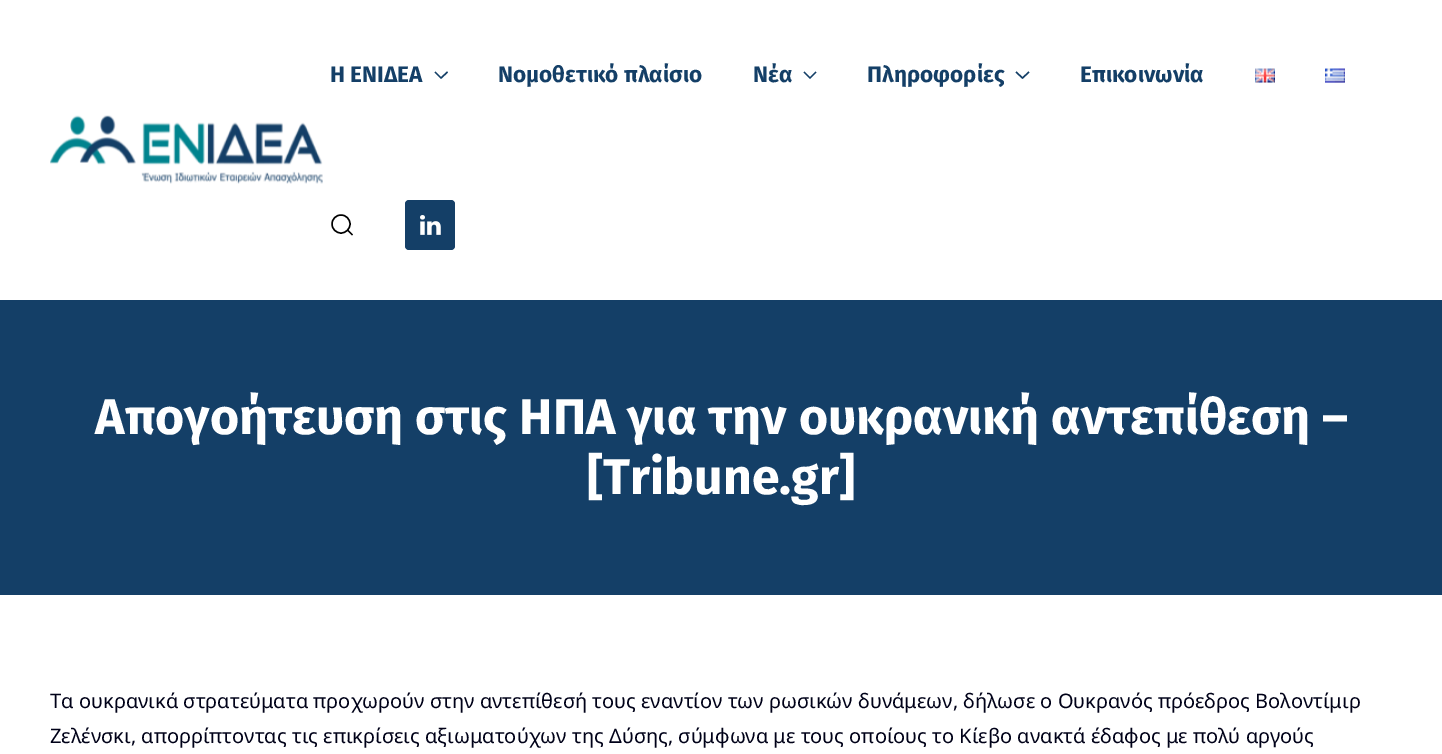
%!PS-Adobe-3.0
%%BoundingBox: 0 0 1442 754
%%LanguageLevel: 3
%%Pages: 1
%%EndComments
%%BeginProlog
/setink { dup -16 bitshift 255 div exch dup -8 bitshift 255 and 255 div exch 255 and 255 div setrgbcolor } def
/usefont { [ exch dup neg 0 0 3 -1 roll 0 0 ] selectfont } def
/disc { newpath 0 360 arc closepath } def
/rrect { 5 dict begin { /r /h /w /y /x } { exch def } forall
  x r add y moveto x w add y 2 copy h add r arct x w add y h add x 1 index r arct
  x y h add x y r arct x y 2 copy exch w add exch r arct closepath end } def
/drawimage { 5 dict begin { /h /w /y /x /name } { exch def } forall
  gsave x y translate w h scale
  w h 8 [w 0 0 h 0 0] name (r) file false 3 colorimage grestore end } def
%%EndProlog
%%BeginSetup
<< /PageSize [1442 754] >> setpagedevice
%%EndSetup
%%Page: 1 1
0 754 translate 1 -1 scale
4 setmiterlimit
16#FFFFFF setink
0 0 1442 754 rectfill
/FiraSans-Bold 22.5 usefont
16#143F67 setink
330 82 moveto (Η ΕΝΙΔΕΑ) show
1.4 setlinewidth
435 72 moveto 441 78 lineto 447.5 72 lineto stroke
498 82 moveto (Νομοθετικό πλαίσιο) show
753 82 moveto (Νέα) show
804 72 moveto 810 78 lineto 816 72 lineto stroke
867 82 moveto (Πληροφορίες) show
1016 72 moveto 1022.5 78 lineto 1029 72 lineto stroke
1080 82 moveto (Επικοινωνία) show
(img1.raw) 1255 68 20 15 drawimage
(img2.raw) 1325 68 20 15 drawimage
16#000000 setink
341 224 9 disc stroke
347.5 230 moveto 352.5 235 lineto closepath stroke
16#143F67 setink
405 200 50 50 4 rrect fill
(img3.raw) 420 215 21 20 drawimage
(img4.raw) 50 115 273 69 drawimage
0 300 1442 295 rectfill
/FiraSans-Bold 50 usefont
16#FFFFFF setink
95 434 moveto (Απογοήτευση στις ΗΠΑ για την ουκρανική αντεπίθεση –) show
587 494 moveto ([Tribune.gr]) show
/NotoSans-Regular 20 usefont
16#000118 setink
50 708 moveto (Τα ουκρανικά στρατεύματα προχωρούν στην αντεπίθεσή τους εναντίον των ρωσικών δυνάμεων, δήλωσε ο Ουκρανός πρόεδρος Βολοντίμιρ) show
50 743 moveto (Ζελένσκι, απορρίπτοντας τις επικρίσεις αξιωματούχων της Δύσης, σύμφωνα με τους οποίους το Κίεβο ανακτά έδαφος με πολύ αργούς) show
showpage
%%EOF
